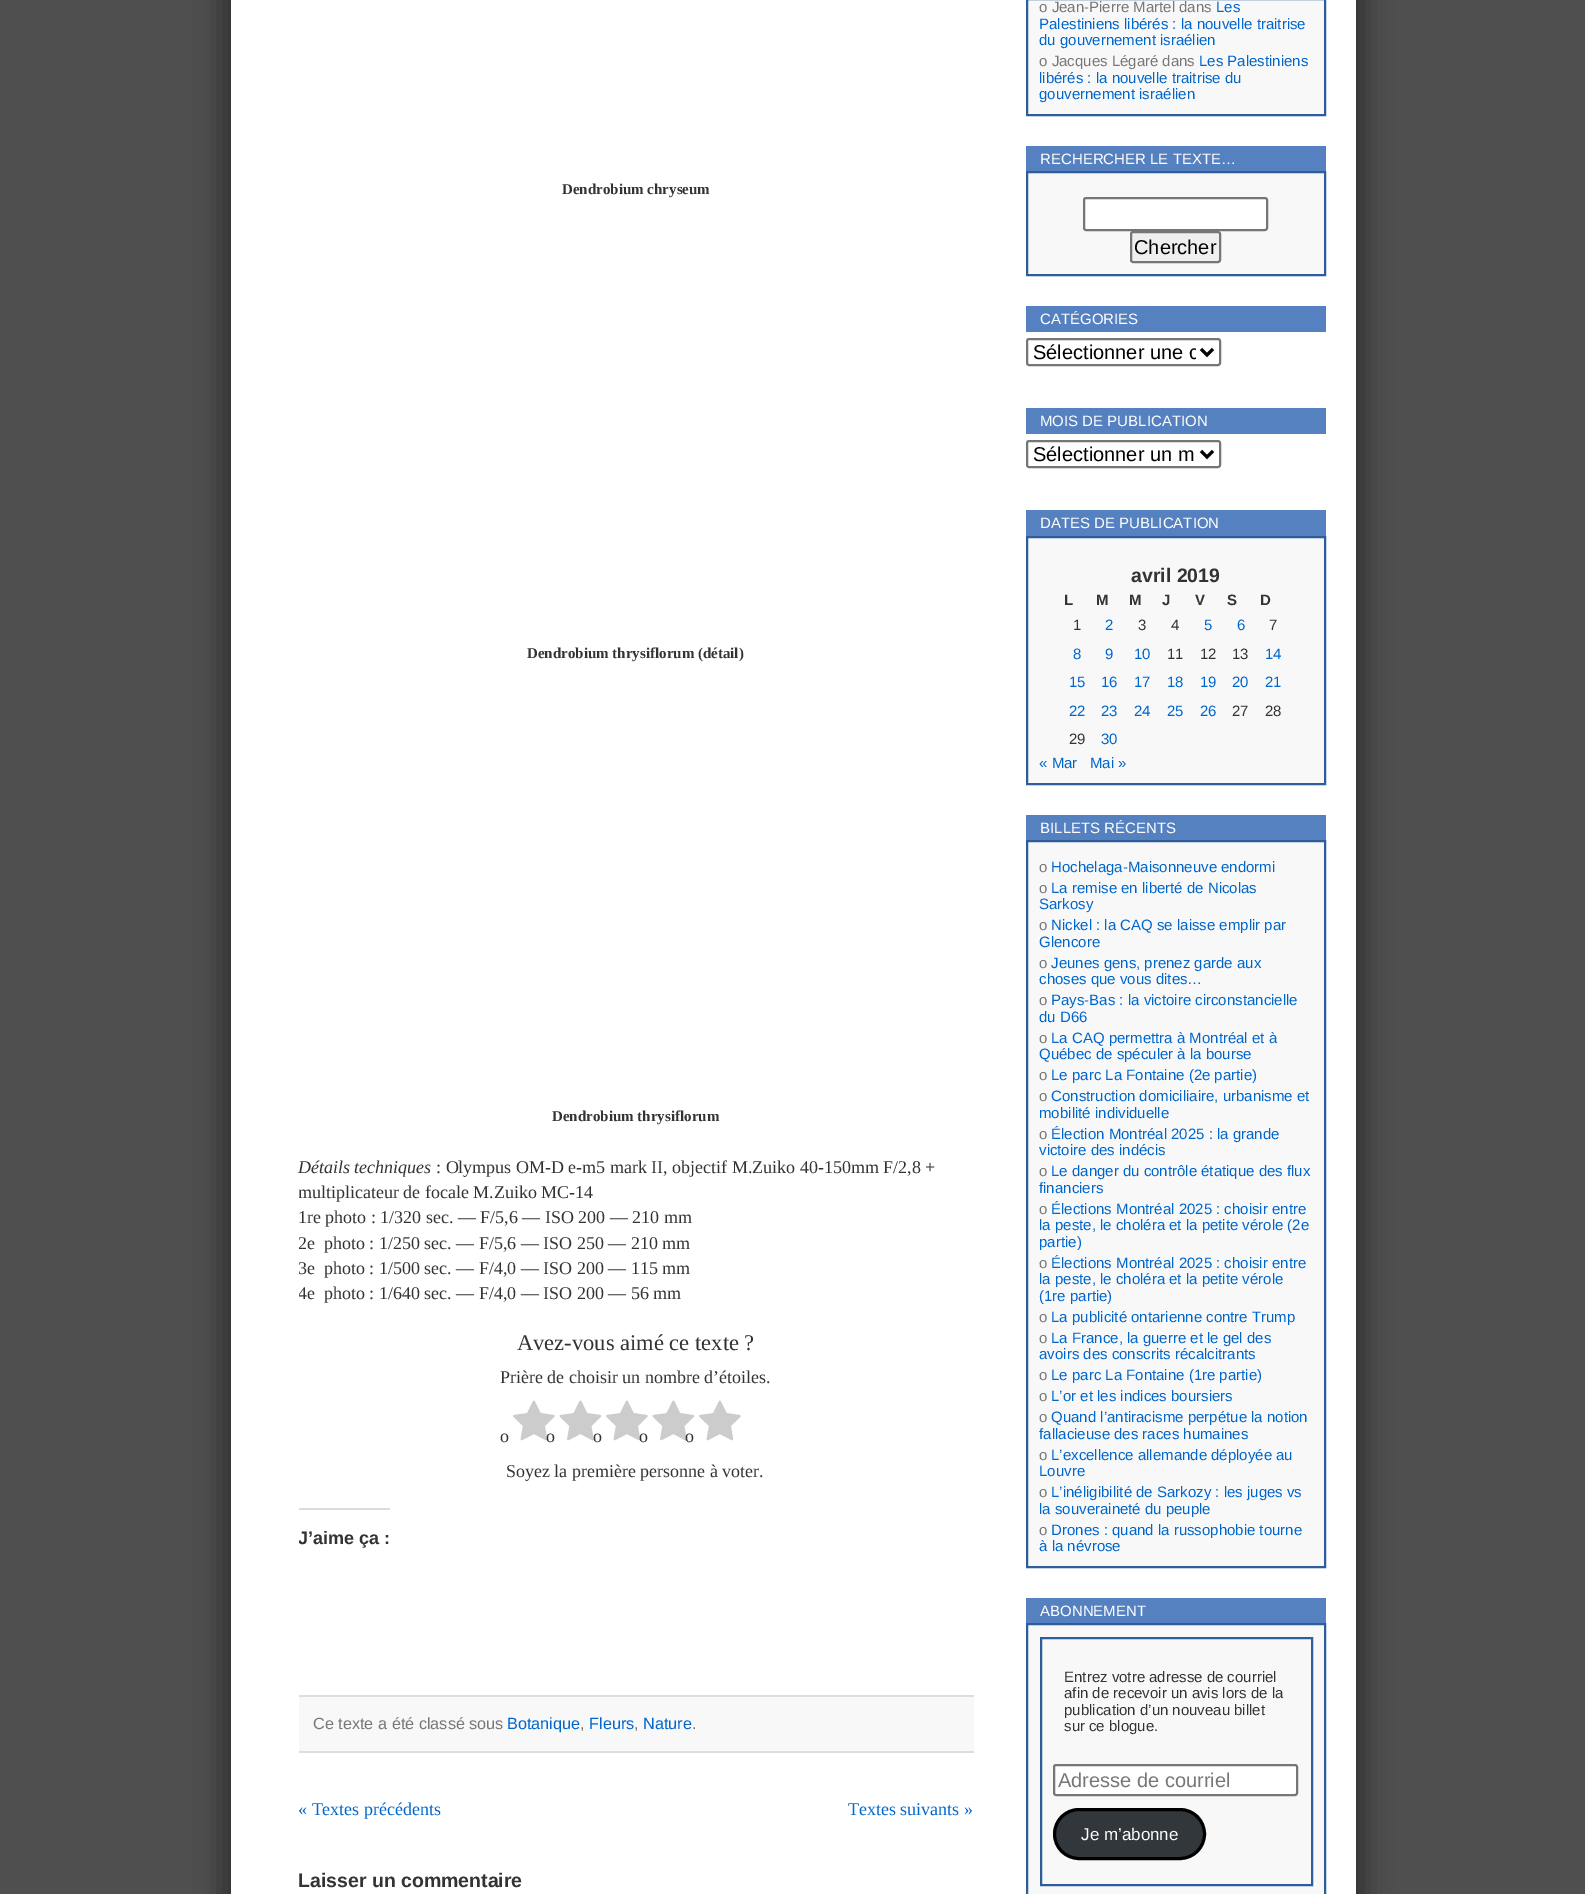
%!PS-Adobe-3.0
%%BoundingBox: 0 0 1585 1894
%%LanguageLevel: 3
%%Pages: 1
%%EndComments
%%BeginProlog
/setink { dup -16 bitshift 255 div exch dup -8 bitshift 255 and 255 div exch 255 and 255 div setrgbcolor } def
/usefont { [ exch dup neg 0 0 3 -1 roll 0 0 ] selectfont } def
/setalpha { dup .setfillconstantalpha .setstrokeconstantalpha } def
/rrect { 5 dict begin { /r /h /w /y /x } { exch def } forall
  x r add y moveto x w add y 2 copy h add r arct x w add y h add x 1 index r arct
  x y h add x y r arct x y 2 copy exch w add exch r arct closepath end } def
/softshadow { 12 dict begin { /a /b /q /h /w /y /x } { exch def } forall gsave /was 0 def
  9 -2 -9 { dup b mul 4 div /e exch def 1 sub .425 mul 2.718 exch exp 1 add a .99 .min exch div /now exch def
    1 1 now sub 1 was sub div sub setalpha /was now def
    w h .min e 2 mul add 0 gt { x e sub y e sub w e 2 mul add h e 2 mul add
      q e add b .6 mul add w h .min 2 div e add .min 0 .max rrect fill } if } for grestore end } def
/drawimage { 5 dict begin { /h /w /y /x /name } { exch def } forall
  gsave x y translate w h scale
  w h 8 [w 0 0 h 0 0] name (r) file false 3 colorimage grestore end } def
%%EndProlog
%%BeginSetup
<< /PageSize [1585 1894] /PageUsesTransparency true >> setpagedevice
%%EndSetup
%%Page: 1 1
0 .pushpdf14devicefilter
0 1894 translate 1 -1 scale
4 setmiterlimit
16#4F4F4F setink
0 0 1585 1894 rectfill
16#000000 setink
219 -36 1125 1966 0 12 0.3 softshadow
243 -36 1125 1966 0 12 0.3 softshadow
16#FFFFFF setink
231 0 1125 1894 rectfill
/LiberationSerif-Bold 15 usefont
16#333333 setink
[
    [(Dendrobium chryseum) 562 194]
    [(Dendrobium thrysiflorum \(détail\)) 527 658]
    [(Dendrobium thrysiflorum) 552 1121]
] { aload pop moveto show } forall
/LiberationSerif-Italic 18 usefont
298 1173 moveto (Détails techniques) show
/LiberationSerif-Regular 18 usefont
436 1173 moveto (: Olympus OM-D e-m5 mark II, objectif M.Zuiko 40-150mm F/2,8 +) show
gsave
299 0 675 1823 rectclip
298 1198 moveto (multiplicateur de focale M.Zuiko MC-14) show
grestore
298 1223 moveto (1re photo : 1/320 sec. — F/5,6 — ISO 200 — 210 mm) show
gsave
299 0 675 1823 rectclip
[
    [(2e  photo : 1/250 sec. — F/5,6 — ISO 250 — 210 mm) 298 1249]
    [(3e  photo : 1/500 sec. — F/4,0 — ISO 200 — 115 mm) 298 1274]
    [(4e  photo : 1/640 sec. — F/4,0 — ISO 200 — 56 mm) 298 1299]
] { aload pop moveto show } forall
grestore
/LiberationSerif-Regular 22.5 usefont
517 1350 moveto (Avez-vous aimé ce texte ?) show
/LiberationSerif-Regular 18 usefont
500 1383 moveto (Prière de choisir un nombre d’étoiles.) show
500 1442 moveto (o) show
(img1.raw) 513 1400 42 41 drawimage
546 1442 moveto (o) show
(img2.raw) 559 1400 43 41 drawimage
593 1442 moveto (o) show
(img1.raw) 606 1400 42 41 drawimage
639 1442 moveto (o) show
(img2.raw) 652 1400 43 41 drawimage
685 1442 moveto (o) show
(img1.raw) 699 1400 42 41 drawimage
506 1477 moveto (Soyez la première personne à voter.) show
16#DCDCDE setink
299 1508 91 2 rectfill
gsave
299 0 675 1823 rectclip
/LiberationSans-Bold 18 usefont
16#333333 setink
298 1544 moveto (J’aime ça :) show
grestore
[
    [299 1697 675 54 16#F8F8F8]
    [299 1695 675 2 16#DDDDDD]
    [299 1751 675 2 16#DDDDDD]
] { aload pop setink rectfill } forall
/LiberationSans-Regular 16.25 usefont
16#777777 setink
313 1729 moveto (Ce texte a été classé sous) show
16#0066CC setink
507 1729 moveto (Botanique) show
16#777777 setink
580 1729 moveto (,) show
16#0066CC setink
589 1729 moveto (Fleurs) show
16#777777 setink
634 1729 moveto (,) show
16#0066CC setink
643 1729 moveto (Nature) show
16#777777 setink
692 1729 moveto (.) show
/LiberationSerif-Regular 18 usefont
16#0066CC setink
298 1815 moveto (« Textes précédents) show
848 1815 moveto (Textes suivants ») show
/LiberationSans-Bold 19.5 usefont
16#333333 setink
298 1887 moveto (Laisser un commentaire) show
16#F8F8F8 setink
1027 -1 moveto 1325 -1 lineto 1325 115 lineto 1027 115 lineto closepath gsave fill grestore
16#2E5D99 setink
2 setlinewidth
stroke
/LiberationSans-Regular 15 usefont
16#777777 setink
1039 12 moveto (o Jean-Pierre Martel dans) show
16#0066CC setink
[
    [(Les) 1216 12]
    [(Palestiniens libérés : la nouvelle traitrise) 1039 29]
    [(du gouvernement israélien) 1039 45]
] { aload pop moveto show } forall
16#777777 setink
1039 66 moveto (o Jacques Légaré dans) show
16#0066CC setink
[
    [(Les Palestiniens) 1199 66]
    [(libérés : la nouvelle traitrise du) 1039 83]
    [(gouvernement israélien) 1039 99]
] { aload pop moveto show } forall
16#5581C0 setink
1026 146 300 25 rectfill
16#FFFFFF setink
1040 164 moveto (RECHERCHER LE TEXTE…) show
16#F8F8F8 setink
1027 172 moveto 1325 172 lineto 1325 275 lineto 1027 275 lineto closepath gsave fill grestore
16#2E5D99 setink
stroke
16#FFFFFF setink
1084 198 183 32 2 rrect gsave fill grestore
16#767676 setink
stroke
16#EFEFEF setink
1131 232 89 30 2 rrect gsave fill grestore
16#767676 setink
stroke
/LiberationSans-Regular 20 usefont
16#000000 setink
1134 254 moveto (Chercher) show
16#5581C0 setink
1026 306 300 26 rectfill
/LiberationSans-Regular 15 usefont
16#FFFFFF setink
1040 324 moveto (CATÉGORIES) show
16#767676 setink
1027 339 193 26 2 rrect stroke
16#000000 setink
3 setlinewidth
1201 349 moveto 1207 355 lineto 1213 349 lineto stroke
gsave
1034 339 162 26 rectclip
/LiberationSans-Regular 20 usefont
1033 359 moveto (Sélectionner une c) show
grestore
16#5581C0 setink
1026 408 300 26 rectfill
16#FFFFFF setink
1040 426 moveto (MOIS DE PUBLICATION) show
16#767676 setink
2 setlinewidth
1027 441 193 26 2 rrect stroke
16#000000 setink
3 setlinewidth
1201 451 moveto 1207 457 lineto 1213 451 lineto stroke
/LiberationSans-Regular 20 usefont
1033 461 moveto (Sélectionner un m) show
16#5581C0 setink
1026 510 300 26 rectfill
/LiberationSans-Regular 15 usefont
16#FFFFFF setink
1040 528 moveto (DATES DE PUBLICATION) show
16#F8F8F8 setink
1027 537 moveto 1325 537 lineto 1325 784 lineto 1027 784 lineto closepath gsave fill grestore
16#2E5D99 setink
2 setlinewidth
stroke
/LiberationSans-Bold 19.5 usefont
16#333333 setink
1131 582 moveto (avril 2019) show
/LiberationSans-Bold 15 usefont
[
    [(L) 1064 605]
    [(M) 1096 605]
    [(M) 1129 605]
    [(J) 1162 605]
    [(V) 1195 605]
    [(S) 1227 605]
    [(D) 1260 605]
] { aload pop moveto show } forall
/LiberationSans-Regular 15 usefont
1073 630 moveto (1) show
16#0066CC setink
1105 630 moveto (2) show
16#333333 setink
1138 630 moveto (3) show
1171 630 moveto (4) show
16#0066CC setink
1204 630 moveto (5) show
1237 630 moveto (6) show
16#333333 setink
1269 630 moveto (7) show
16#0066CC setink
[
    [(8) 1073 659]
    [(9) 1105 659]
    [(10) 1134 659]
] { aload pop moveto show } forall
16#333333 setink
[
    [(11) 1167 659]
    [(12) 1200 659]
    [(13) 1232 659]
] { aload pop moveto show } forall
16#0066CC setink
[
    [(14) 1265 659]
    [(15) 1069 687]
    [(16) 1101 687]
    [(17) 1134 687]
    [(18) 1167 687]
    [(19) 1200 687]
    [(20) 1232 687]
    [(21) 1265 687]
    [(22) 1069 716]
    [(23) 1101 716]
    [(24) 1134 716]
    [(25) 1167 716]
    [(26) 1200 716]
] { aload pop moveto show } forall
16#333333 setink
[
    [(27) 1232 716]
    [(28) 1265 716]
    [(29) 1069 744]
] { aload pop moveto show } forall
16#0066CC setink
[
    [(30) 1101 744]
    [(« Mar) 1039 768]
    [(Mai ») 1090 768]
] { aload pop moveto show } forall
16#5581C0 setink
1026 815 300 25 rectfill
16#FFFFFF setink
1040 833 moveto (BILLETS RÉCENTS) show
16#F8F8F8 setink
1027 841 moveto 1325 841 lineto 1325 1567 lineto 1027 1567 lineto closepath gsave fill grestore
16#2E5D99 setink
stroke
16#777777 setink
1039 872 moveto (o) show
16#0066CC setink
1051 872 moveto (Hochelaga-Maisonneuve endormi) show
16#777777 setink
1039 893 moveto (o) show
16#0066CC setink
1051 893 moveto (La remise en liberté de Nicolas) show
1039 909 moveto (Sarkosy) show
16#777777 setink
1039 930 moveto (o) show
16#0066CC setink
1051 930 moveto (Nickel : la CAQ se laisse emplir par) show
1039 947 moveto (Glencore) show
16#777777 setink
1039 968 moveto (o) show
16#0066CC setink
1051 968 moveto (Jeunes gens, prenez garde aux) show
1039 984 moveto (choses que vous dites…) show
16#777777 setink
1039 1005 moveto (o) show
16#0066CC setink
1051 1005 moveto (Pays-Bas : la victoire circonstancielle) show
1039 1022 moveto (du D66) show
16#777777 setink
1039 1043 moveto (o) show
16#0066CC setink
1051 1043 moveto (La CAQ permettra à Montréal et à) show
1039 1059 moveto (Québec de spéculer à la bourse) show
16#777777 setink
1039 1080 moveto (o) show
16#0066CC setink
1051 1080 moveto (Le parc La Fontaine \(2e partie\)) show
16#777777 setink
1039 1101 moveto (o) show
16#0066CC setink
1051 1101 moveto (Construction domiciliaire, urbanisme et) show
1039 1118 moveto (mobilité individuelle) show
16#777777 setink
1039 1139 moveto (o) show
16#0066CC setink
1051 1139 moveto (Élection Montréal 2025 : la grande) show
1039 1155 moveto (victoire des indécis) show
16#777777 setink
1039 1176 moveto (o) show
16#0066CC setink
1051 1176 moveto (Le danger du contrôle étatique des flux) show
1039 1193 moveto (financiers) show
16#777777 setink
1039 1214 moveto (o) show
16#0066CC setink
[
    [(Élections Montréal 2025 : choisir entre) 1051 1214]
    [(la peste, le choléra et la petite vérole \(2e) 1039 1230]
    [(partie\)) 1039 1247]
] { aload pop moveto show } forall
16#777777 setink
1039 1268 moveto (o) show
16#0066CC setink
[
    [(Élections Montréal 2025 : choisir entre) 1051 1268]
    [(la peste, le choléra et la petite vérole) 1039 1284]
    [(\(1re partie\)) 1039 1301]
] { aload pop moveto show } forall
16#777777 setink
1039 1322 moveto (o) show
16#0066CC setink
1051 1322 moveto (La publicité ontarienne contre Trump) show
16#777777 setink
1039 1343 moveto (o) show
16#0066CC setink
1051 1343 moveto (La France, la guerre et le gel des) show
1039 1359 moveto (avoirs des conscrits récalcitrants) show
16#777777 setink
1039 1380 moveto (o) show
16#0066CC setink
1051 1380 moveto (Le parc La Fontaine \(1re partie\)) show
16#777777 setink
1039 1401 moveto (o) show
16#0066CC setink
1051 1401 moveto (L’or et les indices boursiers) show
16#777777 setink
1039 1422 moveto (o) show
16#0066CC setink
1051 1422 moveto (Quand l’antiracisme perpétue la notion) show
1039 1439 moveto (fallacieuse des races humaines) show
16#777777 setink
1039 1460 moveto (o) show
16#0066CC setink
1051 1460 moveto (L’excellence allemande déployée au) show
1039 1476 moveto (Louvre) show
16#777777 setink
1039 1497 moveto (o) show
16#0066CC setink
1051 1497 moveto (L’inéligibilité de Sarkozy : les juges vs) show
1039 1514 moveto (la souveraineté du peuple) show
16#777777 setink
1039 1535 moveto (o) show
16#0066CC setink
1051 1535 moveto (Drones : quand la russophobie tourne) show
1039 1551 moveto (à la névrose) show
16#5581C0 setink
1026 1598 300 25 rectfill
16#FFFFFF setink
1040 1616 moveto (ABONNEMENT) show
16#F8F8F8 setink
1027 1624 moveto 1325 1624 lineto 1325 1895 lineto 1027 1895 lineto closepath gsave fill grestore
16#2E5D99 setink
stroke
1041 1638 271 247 rectstroke
16#333333 setink
[
    [(Entrez votre adresse de courriel) 1064 1682]
    [(afin de recevoir un avis lors de la) 1064 1698]
    [(publication d’un nouveau billet) 1064 1715]
    [(sur ce blogue.) 1064 1731]
] { aload pop moveto show } forall
16#FFFFFF setink
1054 1765 243 30 2 rrect gsave fill grestore
16#767676 setink
stroke
/LiberationSans-Regular 20 usefont
16#777777 setink
1058 1787 moveto (Adresse de courriel) show
16#32373C setink
1054.5 1809.5 150 49 24.5 rrect gsave fill grestore
16#000000 setink
3 setlinewidth
stroke
/LiberationSans-Regular 17 usefont
16#FFFFFF setink
1081 1840 moveto (Je m’abonne) show
.poppdf14devicefilter showpage
%%EOF
